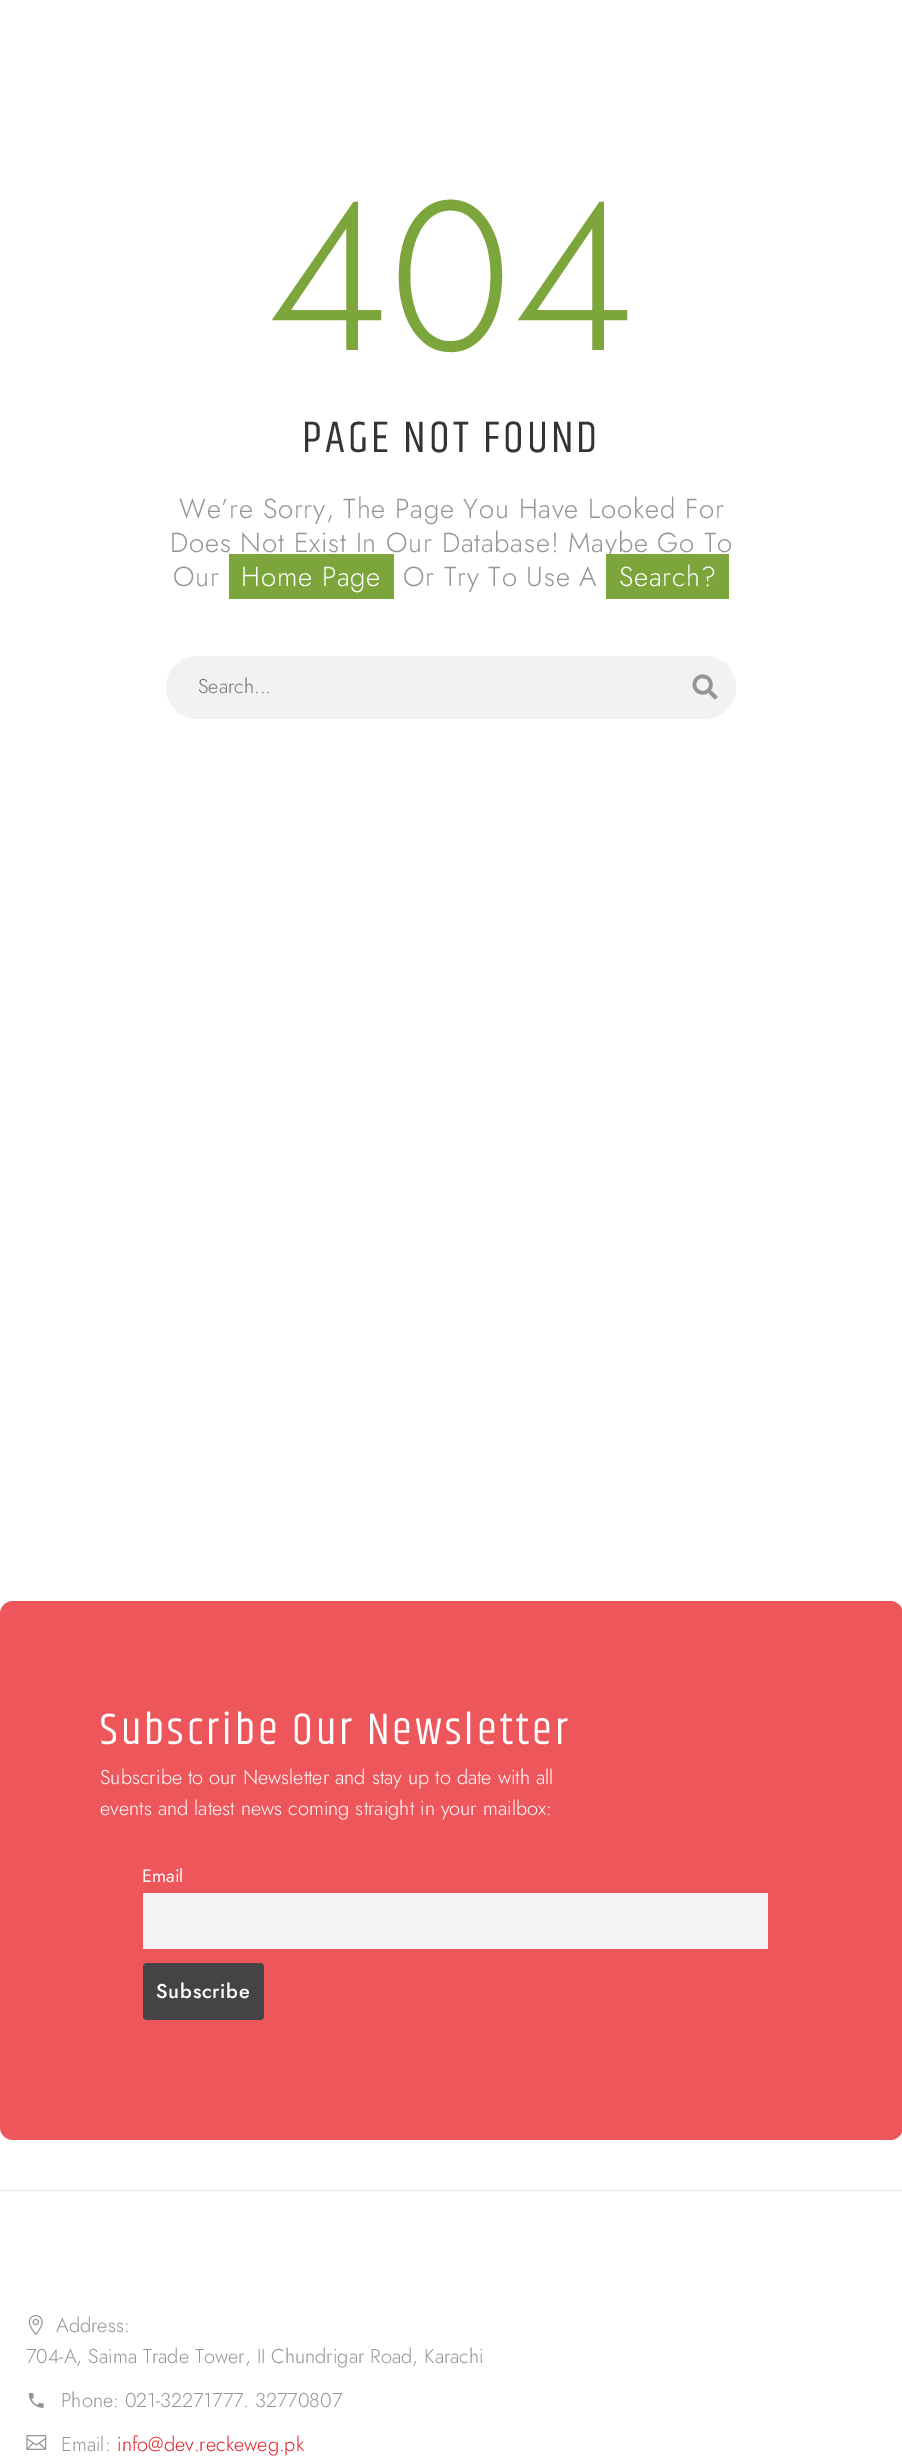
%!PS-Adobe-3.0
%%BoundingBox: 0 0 902 2460
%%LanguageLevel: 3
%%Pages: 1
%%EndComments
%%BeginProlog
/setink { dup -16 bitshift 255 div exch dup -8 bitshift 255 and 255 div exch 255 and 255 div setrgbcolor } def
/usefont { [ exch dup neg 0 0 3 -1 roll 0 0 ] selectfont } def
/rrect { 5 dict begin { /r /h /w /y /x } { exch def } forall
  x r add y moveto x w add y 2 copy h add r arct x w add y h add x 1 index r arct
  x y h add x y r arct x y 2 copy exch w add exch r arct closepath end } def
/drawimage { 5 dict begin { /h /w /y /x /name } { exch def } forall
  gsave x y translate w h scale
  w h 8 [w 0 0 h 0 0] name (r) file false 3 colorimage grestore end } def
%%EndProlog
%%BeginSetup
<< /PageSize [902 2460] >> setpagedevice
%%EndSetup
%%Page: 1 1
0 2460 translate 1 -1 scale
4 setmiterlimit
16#FFFFFF setink
0 0 902 2460 rectfill
/Jost-Light 212 usefont
16#7CA53B setink
267 350 moveto 1 0 (404) ashow
/Khand-Regular 45 usefont
16#333333 setink
302 452 moveto 3.1 0 (PAGE NOT FOUND) ashow
/Jost-Light 27.5 usefont
16#959595 setink
179 518 moveto 0.75 0 (We’re Sorry, The Page You Have Looked For) ashow
170 552 moveto 0.75 0 (Does Not Exist In Our Database! Maybe Go To) ashow
173 586 moveto 0.75 0 (Our) ashow
16#7CA53B setink
229 554 165 45 rectfill
16#FFFFFF setink
241 586 moveto 0.75 0 (Home Page) ashow
16#959595 setink
403 586 moveto 0.75 0 (Or Try To Use A) ashow
16#7CA53B setink
606 554 123 45 rectfill
16#FFFFFF setink
619 586 moveto 0.75 0 (Search?) ashow
16#F0F3F2 setink
166 656 570 63 31.5 rrect fill
/Jost-Light 20 usefont
16#757575 setink
198 693 moveto (Search...) show
(img1.raw) 692 674 26 26 drawimage
16#ED565B setink
0 1601 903 539 13 rrect fill
/Khand-Regular 45 usefont
16#FFFFFF setink
100 1744 moveto 3.1 0 (Subscribe Our Newsletter) ashow
/Jost-Light 20 usefont
100 1784 moveto (Subscribe to our Newsletter and stay up to date with all) show
100 1815 moveto (events and latest news coming straight in your mailbox:) show
/Jost-Regular 18 usefont
142 1882 moveto (Email) show
16#F4F4F4 setink
143 1893 625 56 rectfill
16#444444 setink
143 1963 121 57 4 rrect fill
/Jost-Medium 20 usefont
16#FFFFFF setink
156 1998 moveto 0.75 0 (Subscribe) ashow
16#E7ECEA setink
0 2190 902 1 rectfill
(img2.raw) 28 2315 15 20 drawimage
/Jost-Light 20 usefont
16#959595 setink
56 2332 moveto (Address:) show
26 2363 moveto (704-A, Saima Trade Tower, II Chundrigar Road, Karachi) show
(img3.raw) 28 2392 16 16 drawimage
61 2407 moveto (Phone: 021-32271777. 32770807) show
(img4.raw) 26 2435 21 15 drawimage
61 2451 moveto (Email:) show
16#E72027 setink
117 2451 moveto (info@dev.reckeweg.pk) show
showpage
%%EOF
